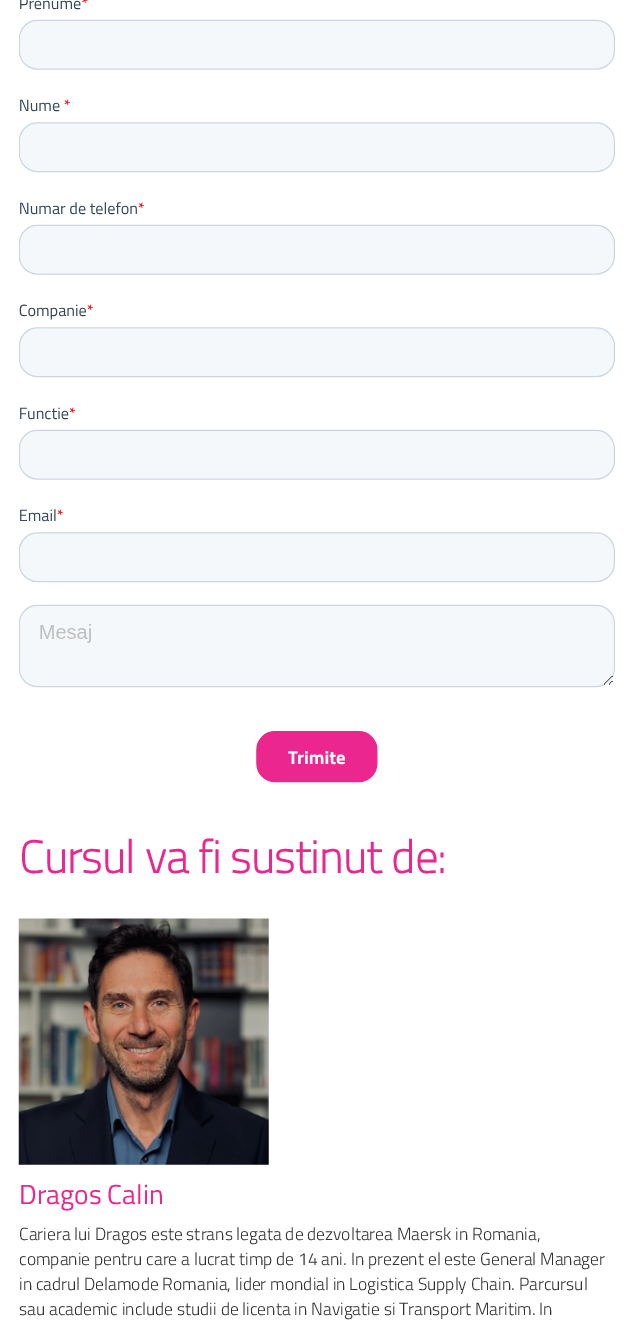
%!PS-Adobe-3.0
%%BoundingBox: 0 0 633 1334
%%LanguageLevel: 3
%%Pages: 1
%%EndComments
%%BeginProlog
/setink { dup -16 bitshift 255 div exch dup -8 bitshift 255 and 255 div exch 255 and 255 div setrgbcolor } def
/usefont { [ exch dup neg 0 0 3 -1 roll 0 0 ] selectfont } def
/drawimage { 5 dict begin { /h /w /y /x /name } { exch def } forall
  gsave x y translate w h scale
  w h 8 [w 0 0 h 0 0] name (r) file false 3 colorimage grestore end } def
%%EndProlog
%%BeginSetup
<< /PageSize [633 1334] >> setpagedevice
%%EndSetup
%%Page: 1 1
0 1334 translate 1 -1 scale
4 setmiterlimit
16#FFFFFF setink
0 0 633 1334 rectfill
(img1.raw) 19 0 596 783 drawimage
/TitilliumWeb-Bold 45 usefont
16#EC268F setink
19 873 moveto (Cursul va fi sustinut de:) show
(img2.raw) 18 918 251 247 drawimage
/TitilliumWeb-Regular 27.5 usefont
19 1204 moveto (Dragos Calin) show
/TitilliumWeb-Light 17.5 usefont
16#333333 setink
[
    [(Cariera lui Dragos este strans legata de dezvoltarea Maersk in Romania,) 19 1240]
    [(companie pentru care a lucrat timp de 14 ani. In prezent el este General Manager) 19 1265]
    [(in cadrul Delamode Romania, lider mondial in Logistica Supply Chain. Parcursul) 19 1290]
    [(sau academic include studii de licenta in Navigatie si Transport Maritim. In) 19 1315]
] { aload pop moveto show } forall
showpage
%%EOF
